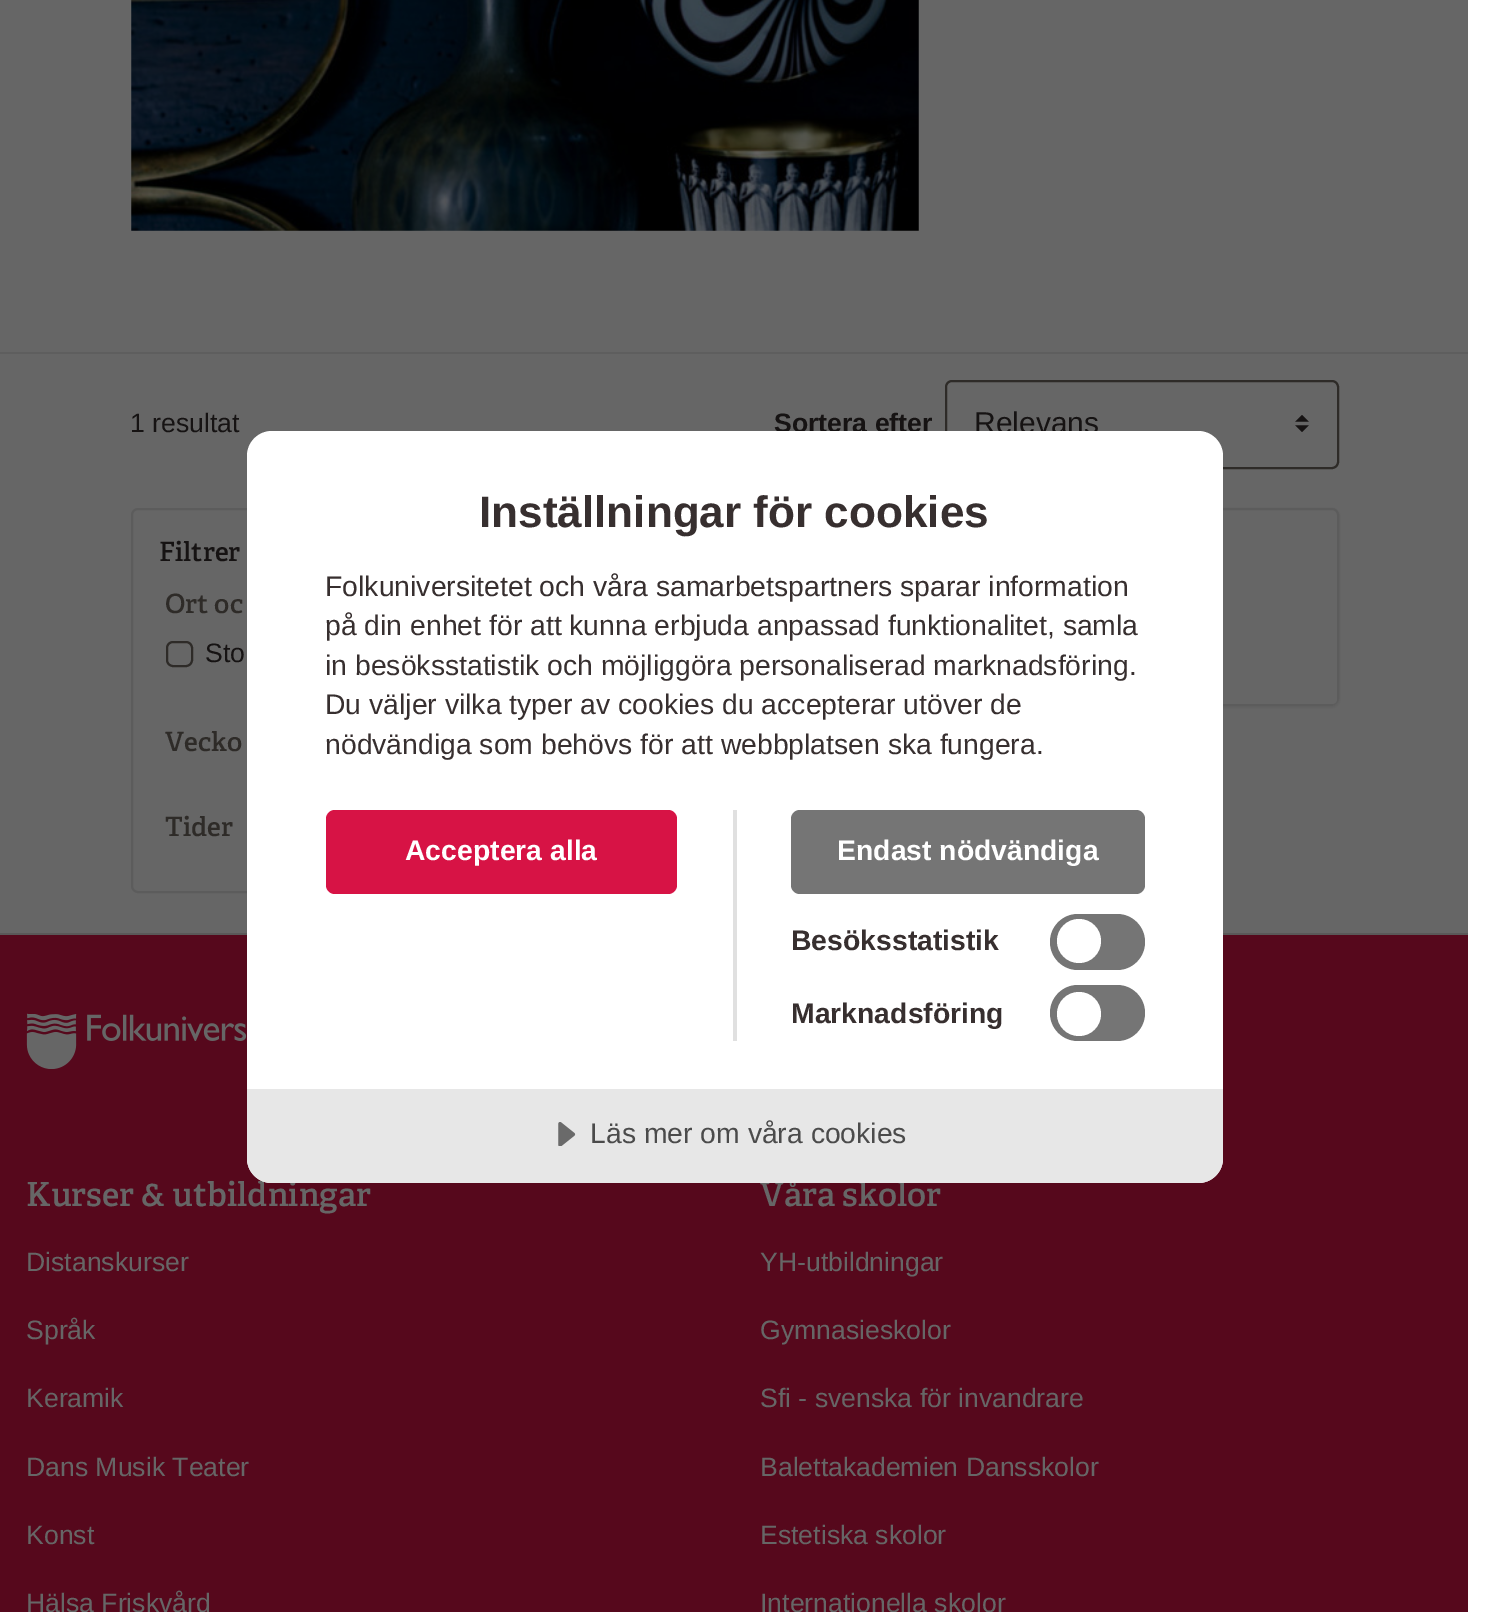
%!PS-Adobe-3.0
%%BoundingBox: 0 0 1494 1612
%%LanguageLevel: 3
%%Pages: 1
%%EndComments
%%BeginProlog
/setink { dup -16 bitshift 255 div exch dup -8 bitshift 255 and 255 div exch 255 and 255 div setrgbcolor } def
/usefont { [ exch dup neg 0 0 3 -1 roll 0 0 ] selectfont } def
/setalpha { dup .setfillconstantalpha .setstrokeconstantalpha } def
/disc { newpath 0 360 arc closepath } def
/rrect { 5 dict begin { /r /h /w /y /x } { exch def } forall
  x r add y moveto x w add y 2 copy h add r arct x w add y h add x 1 index r arct
  x y h add x y r arct x y 2 copy exch w add exch r arct closepath end } def
/softshadow { 12 dict begin { /a /b /q /h /w /y /x } { exch def } forall gsave /was 0 def
  9 -2 -9 { dup b mul 4 div /e exch def 1 sub .425 mul 2.718 exch exp 1 add a .99 .min exch div /now exch def
    1 1 now sub 1 was sub div sub setalpha /was now def
    w h .min e 2 mul add 0 gt { x e sub y e sub w e 2 mul add h e 2 mul add
      q e add b .6 mul add w h .min 2 div e add .min 0 .max rrect fill } if } for grestore end } def
/drawimage { 5 dict begin { /h /w /y /x /name } { exch def } forall
  gsave x y translate w h scale
  w h 8 [w 0 0 h 0 0] name (r) file false 3 colorimage grestore end } def
%%EndProlog
%%BeginSetup
<< /PageSize [1494 1612] /PageUsesTransparency true >> setpagedevice
%%EndSetup
%%Page: 1 1
0 .pushpdf14devicefilter
0 1612 translate 1 -1 scale
4 setmiterlimit
16#FFFFFF setink
0 0 1494 1612 rectfill
16#666666 setink
0 0 1468 933 rectfill
(img1.raw) 131 0 788 231 drawimage
16#5E5E5E setink
0 352 1468 2 rectfill
/LiberationSans-Regular 26.6 usefont
16#161313 setink
130 432 moveto (1 resultat) show
/LiberationSans-Bold 26.6 usefont
774 432 moveto (Sortera efter) show
(img2.raw) 1295 415 14 17 drawimage
16#2E2B28 setink
2 setlinewidth
946 381 392 87 6 rrect stroke
/LiberationSans-Regular 30 usefont
16#161313 setink
974 433 moveto (Relevans) show
16#5C5C5C setink
132 509 366 383 6 rrect stroke
/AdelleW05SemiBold-SemiBold 26.6 usefont
16#161313 setink
159 561 moveto (Filtrer) show
16#2E2B28 setink
165 613 moveto (Ort oc) show
167 642 25 24 6 rrect stroke
/LiberationSans-Regular 26.6 usefont
16#161313 setink
205 662 moveto (Sto) show
/AdelleW05SemiBold-SemiBold 26.6 usefont
16#2E2B28 setink
165 751 moveto (Vecko) show
165 836 moveto (Tider) show
16#000000 setink
551 509 788 198 7 2 0.1 softshadow
16#666666 setink
551 508 788 197 7 rrect fill
0.12 setalpha
16#161313 setink
552 509 786 195 6 rrect stroke
1 setalpha
16#666666 setink
553 590 moveto 1337 590 lineto 1337 699 lineto 1337 702 1335 704 1332 704 curveto 558 704 lineto 555 704 553 702 553 699 curveto closepath fill
16#56081C setink
0 935 1468 677 rectfill
16#5A5858 setink
0 933 1468 2 rectfill
(img3.raw) 26 1013 221 56 drawimage
/AdelleW05SemiBold-SemiBold 33.25 usefont
16#666666 setink
26 1206 moveto (Kurser & utbildningar) show
/LiberationSans-Regular 26.6 usefont
[
    [(Distanskurser) 26 1271]
    [(Språk) 26 1339]
    [(Keramik) 26 1407]
    [(Dans Musik Teater) 26 1476]
    [(Konst) 26 1544]
    [(Hälsa Friskvård) 26 1612]
] { aload pop moveto show } forall
/AdelleW05SemiBold-SemiBold 33.25 usefont
760 1206 moveto (Våra skolor) show
/LiberationSans-Regular 26.6 usefont
[
    [(YH-utbildningar) 760 1271]
    [(Gymnasieskolor) 760 1339]
    [(Sfi - svenska för invandrare) 760 1407]
    [(Balettakademien Dansskolor) 760 1476]
    [(Estetiska skolor) 760 1544]
    [(Internationella skolor) 760 1612]
] { aload pop moveto show } forall
16#FFFFFF setink
247 431 976 752 25 rrect fill
/LiberationSans-Bold 44.1 usefont
16#372F2F setink
479 527 moveto (Inställningar för cookies) show
/LiberationSans-Regular 28.35 usefont
[
    [(Folkuniversitetet och våra samarbetspartners sparar information) 325 596]
    [(på din enhet för att kunna erbjuda anpassad funktionalitet, samla) 325 635]
    [(in besöksstatistik och möjliggöra personaliserad marknadsföring.) 325 675]
    [(Du väljer vilka typer av cookies du accepterar utöver de) 325 714]
    [(nödvändiga som behövs för att webbplatsen ska fungera.) 325 754]
] { aload pop moveto show } forall
16#E0E0E0 setink
733 810 4 231 rectfill
16#D71345 setink
326 810 351 84 9 rrect fill
/LiberationSans-Bold 28.35 usefont
16#FFFFFF setink
405 860 moveto (Acceptera alla) show
16#757575 setink
791 810 354 84 9 rrect fill
16#FFFFFF setink
837 860 moveto (Endast nödvändiga) show
16#372F2F setink
791 950 moveto (Besöksstatistik) show
16#757575 setink
1050 914 95 56 28 rrect fill
16#FFFFFF setink
1079 941 22 disc fill
16#372F2F setink
791 1023 moveto (Marknadsföring) show
16#757575 setink
1050 985 95 56 28 rrect fill
16#FFFFFF setink
1079 1014 22 disc fill
16#E7E7E7 setink
247 1089 moveto 1223 1089 lineto 1223 1158 lineto 1223 1172 1212 1183 1198 1183 curveto 272 1183 lineto 258 1183 247 1172 247 1158 curveto closepath fill
(img4.raw) 558 1122 18 24 drawimage
/LiberationSans-Regular 28.35 usefont
16#4B4B4B setink
590 1143 moveto (Läs mer om våra cookies) show
.poppdf14devicefilter showpage
%%EOF
